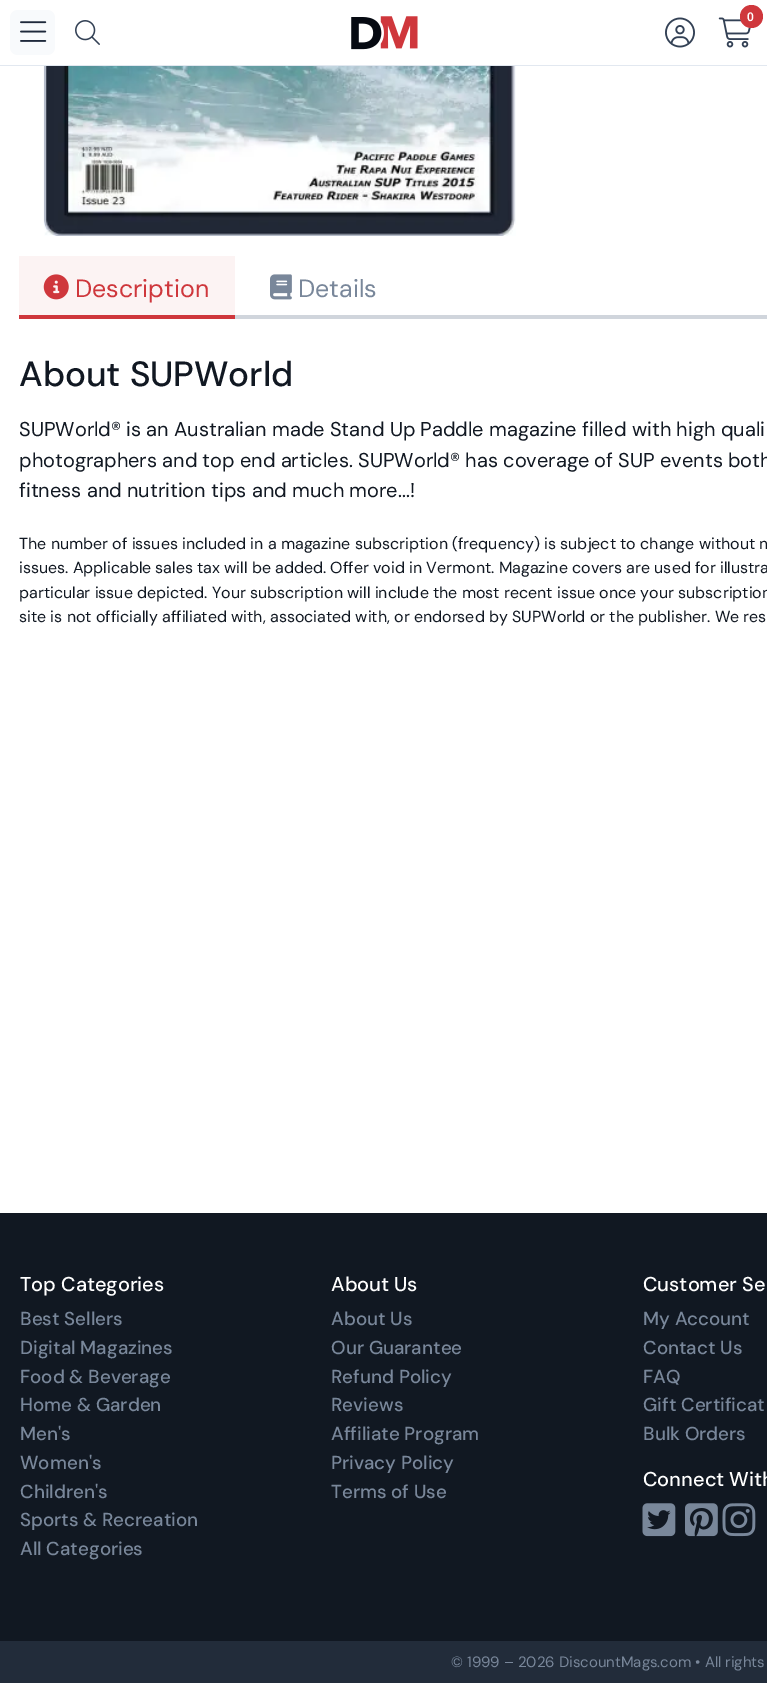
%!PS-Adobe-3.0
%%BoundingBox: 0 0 767 1683
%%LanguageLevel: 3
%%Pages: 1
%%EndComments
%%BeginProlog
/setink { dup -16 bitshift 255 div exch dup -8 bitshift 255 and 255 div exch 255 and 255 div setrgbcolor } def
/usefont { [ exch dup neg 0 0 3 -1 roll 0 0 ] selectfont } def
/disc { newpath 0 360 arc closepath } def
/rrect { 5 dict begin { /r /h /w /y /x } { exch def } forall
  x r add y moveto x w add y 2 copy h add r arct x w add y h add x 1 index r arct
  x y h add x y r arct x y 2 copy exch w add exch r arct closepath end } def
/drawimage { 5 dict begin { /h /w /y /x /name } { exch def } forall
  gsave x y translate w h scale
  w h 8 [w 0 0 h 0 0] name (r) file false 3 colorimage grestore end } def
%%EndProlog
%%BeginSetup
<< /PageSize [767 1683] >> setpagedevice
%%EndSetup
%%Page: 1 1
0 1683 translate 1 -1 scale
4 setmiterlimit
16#FFFFFF setink
0 0 767 1683 rectfill
16#E2E8F0 setink
0 65 767 1 rectfill
16#F8FAFC setink
10 10 45 45 8 rrect fill
(img1.raw) 20 21 27 21 drawimage
(img2.raw) 75 20 25 25 drawimage
(img3.raw) 351 16 67 34 drawimage
(img4.raw) 665 17 30 31 drawimage
(img5.raw) 718 17 33 31 drawimage
16#CF373C setink
751.5 16.5 11.5 disc fill
/NotoSans-SemiBold 12 usefont
16#FFFFFF setink
747 21 moveto -1 0 (0) ashow
(img6.raw) 43 66 473 170 drawimage
[
    [235 315 532 4 16#D0D5DC]
    [19 256 216 59 16#FCF3F3]
    [19 315 216 4 16#CF373C]
] { aload pop setink rectfill } forall
(img7.raw) 43 274 26 26 drawimage
/DMSans-Regular 25 usefont
75 297 moveto (Description) show
(img8.raw) 270 274 22 26 drawimage
16#79879A setink
298 297 moveto (Details) show
/DMSans-Medium 35 usefont
16#111822 setink
19 386 moveto (About SUPWorld) show
/DMSans-Regular 20 usefont
[
    [(SUPWorld® is an Australian made Stand Up Paddle magazine filled with high quali) 19 436]
    [(photographers and top end articles. SUPWorld® has coverage of SUP events both) 19 467]
    [(fitness and nutrition tips and much more...!) 19 497]
] { aload pop moveto show } forall
/DMSans-Regular 16 usefont
[
    [(The number of issues included in a magazine subscription \(frequency\) is subject to change without n) 19 549]
    [(issues. Applicable sales tax will be added. Offer void in Vermont. Magazine covers are used for illustra) 19 573]
    [(particular issue depicted. Your subscription will include the most recent issue once your subscription) 19 598]
    [(site is not officially affiliated with, associated with, or endorsed by SUPWorld or the publisher. We res) 19 622]
] { aload pop moveto show } forall
0 1213 767 428 rectfill
/DMSans-Medium 20 usefont
16#FFFFFF setink
20 1291 moveto (Top Categories) show
/DMSans-Medium 18.75 usefont
16#79879A setink
[
    [(Best Sellers) 20 1325]
    [(Digital Magazines) 20 1354]
    [(Food & Beverage) 20 1383]
    [(Home & Garden) 20 1411]
    [(Men's) 20 1440]
    [(Women's) 20 1469]
    [(Children's) 20 1498]
    [(Sports & Recreation) 20 1526]
    [(All Categories) 20 1555]
] { aload pop moveto show } forall
/DMSans-Medium 20 usefont
16#FFFFFF setink
331 1291 moveto (About Us) show
/DMSans-Medium 18.75 usefont
16#79879A setink
[
    [(About Us) 331 1325]
    [(Our Guarantee) 331 1354]
    [(Refund Policy) 331 1383]
    [(Reviews) 331 1411]
    [(Affiliate Program) 331 1440]
    [(Privacy Policy) 331 1469]
    [(Terms of Use) 331 1498]
] { aload pop moveto show } forall
/DMSans-Medium 20 usefont
16#FFFFFF setink
643 1291 moveto (Customer Se) show
/DMSans-Medium 18.75 usefont
16#79879A setink
[
    [(My Account) 643 1325]
    [(Contact Us) 643 1354]
    [(FAQ) 643 1383]
    [(Gift Certificat) 643 1411]
    [(Bulk Orders) 643 1440]
] { aload pop moveto show } forall
/DMSans-Medium 20 usefont
16#FFFFFF setink
643 1486 moveto (Connect With) show
(img9.raw) 642 1503 34 34 drawimage
(img10.raw) 685 1503 33 34 drawimage
(img11.raw) 722 1503 34 34 drawimage
16#222C3A setink
0 1641 767 42 rectfill
/DMSans-Regular 15 usefont
16#79879A setink
451 1667 moveto (© 1999 – 2026 DiscountMags.com • All rights) show
showpage
%%EOF
